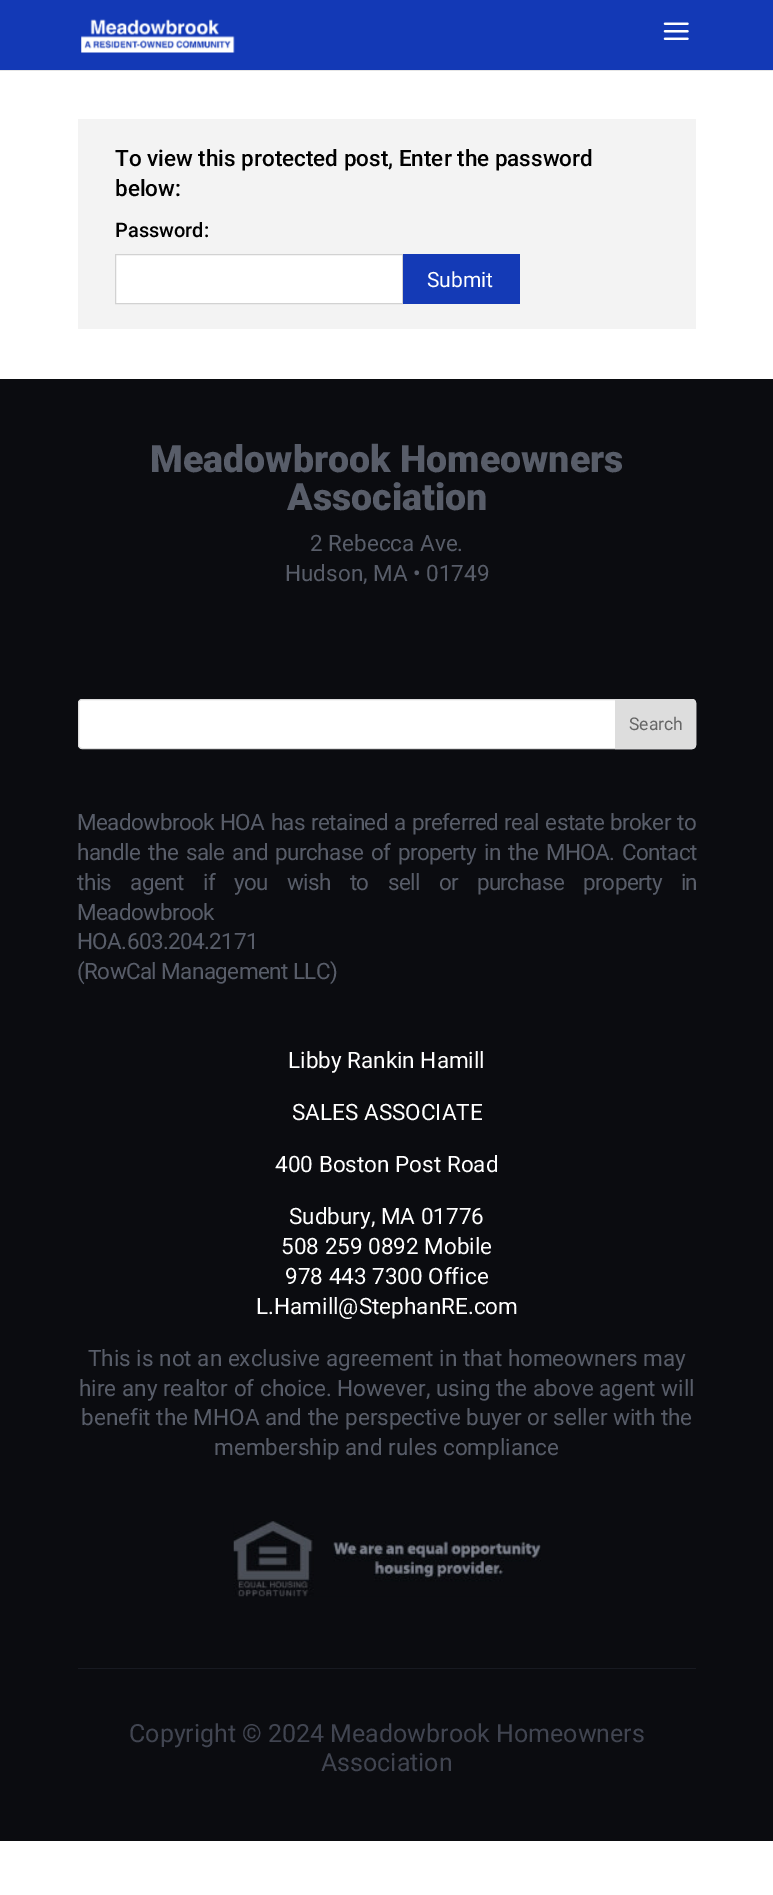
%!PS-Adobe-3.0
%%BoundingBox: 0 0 773 1895
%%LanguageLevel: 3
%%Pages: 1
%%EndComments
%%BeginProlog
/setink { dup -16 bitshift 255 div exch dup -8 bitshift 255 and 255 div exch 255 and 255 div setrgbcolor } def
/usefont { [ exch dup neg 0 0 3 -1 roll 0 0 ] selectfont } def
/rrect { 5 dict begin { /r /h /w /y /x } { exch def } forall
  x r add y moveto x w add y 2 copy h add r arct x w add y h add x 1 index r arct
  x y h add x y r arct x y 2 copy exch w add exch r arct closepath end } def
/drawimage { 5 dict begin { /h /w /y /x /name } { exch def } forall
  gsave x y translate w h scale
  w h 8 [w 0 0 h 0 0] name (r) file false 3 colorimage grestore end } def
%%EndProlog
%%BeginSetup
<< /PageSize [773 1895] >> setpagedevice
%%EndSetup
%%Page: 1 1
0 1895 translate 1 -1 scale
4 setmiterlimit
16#FFFFFF setink
0 0 773 1895 rectfill
16#E6E6E6 setink
0 70 moveto 0 71 lineto 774 71 lineto 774 1 lineto 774 70 lineto closepath fill
16#1339B6 setink
0 0 773 70 rectfill
(img1.raw) 81 19 154 34 drawimage
(img2.raw) 663 22 26 18 drawimage
16#F3F3F3 setink
78 119 618 210 rectfill
/Roboto-Medium 22.5 usefont
16#000000 setink
115 166 moveto (To view this protected post, Enter the password) show
115 196 moveto (below:) show
/Roboto-Medium 20 usefont
115 237 moveto (Password:) show
16#FFFFFF setink
115.5 254.5 moveto 402.5 254.5 lineto 402.5 303.5 lineto 115.5 303.5 lineto closepath gsave fill grestore
16#D2D2D2 setink
stroke
16#143AB6 setink
403 254 117 50 rectfill
/Roboto-Regular 21 usefont
16#FFFFFF setink
427 287 moveto (Submit) show
16#0B0C10 setink
0 379 773 1462 rectfill
16#181A21 setink
78 1668 618 1 rectfill
/Roboto-Black 37.5 usefont
16#585D69 setink
150 472 moveto (Meadowbrook Homeowners) show
287 510 moveto (Association) show
/Roboto-Regular 22.5 usefont
310 551 moveto (2 Rebecca Ave.) show
285 581 moveto (Hudson, MA • 01749) show
16#FFFFFF setink
78.5 699.5 617 49 3.5 rrect gsave fill grestore
16#DDDDDD setink
stroke
615.5 699.5 moveto 692 699.5 lineto 694 699.5 695.5 701 695.5 703 curveto 695.5 745 lineto 695.5 747 694 748.5 692 748.5 curveto 615.5 748.5 lineto closepath gsave fill grestore
stroke
/Roboto-Regular 17.5 usefont
16#666666 setink
629 730 moveto (Search) show
/Roboto-Regular 22.5 usefont
16#585D69 setink
77 830 moveto 1.25 0 32 -0.62 0 (Meadowbrook HOA has retained a preferred real estate broker to) awidthshow
77 860 moveto 2.75 0 32 -0.62 0 (handle the sale and purchase of property in the MHOA. Contact) awidthshow
77 890 moveto 14 0 32 -0.62 0 (this agent if you wish to sell or purchase property in) awidthshow
77 920 moveto -0.62 0 (Meadowbrook) ashow
77 949 moveto -0.62 0 (HOA.603.204.2171) ashow
77 979 moveto -0.62 0 (\(RowCal Management LLC\)) ashow
16#FFFFFF setink
[
    [(Libby Rankin Hamill) 288 1068]
    [(SALES ASSOCIATE) 292 1120]
    [(400 Boston Post Road) 275 1172]
    [(Sudbury, MA 01776) 289 1224]
    [(508 259 0892 Mobile) 281 1254]
    [(978 443 7300 Office) 285 1284]
    [(L.Hamill@StephanRE.com) 256 1314]
] { aload pop moveto show } forall
16#585D69 setink
[
    [(This is not an exclusive agreement in that homeowners may) 88 1366]
    [(hire any realtor of choice. However, using the above agent will) 79 1396]
    [(benefit the MHOA and the perspective buyer or seller with the) 81 1425]
    [(membership and rules compliance) 214 1455]
] { aload pop moveto show } forall
(img3.raw) 233 1521 308 76 drawimage
/Roboto-Regular 25 usefont
16#414551 setink
129 1742 moveto (Copyright © 2024 Meadowbrook Homeowners) show
321 1771 moveto (Association) show
showpage
%%EOF
